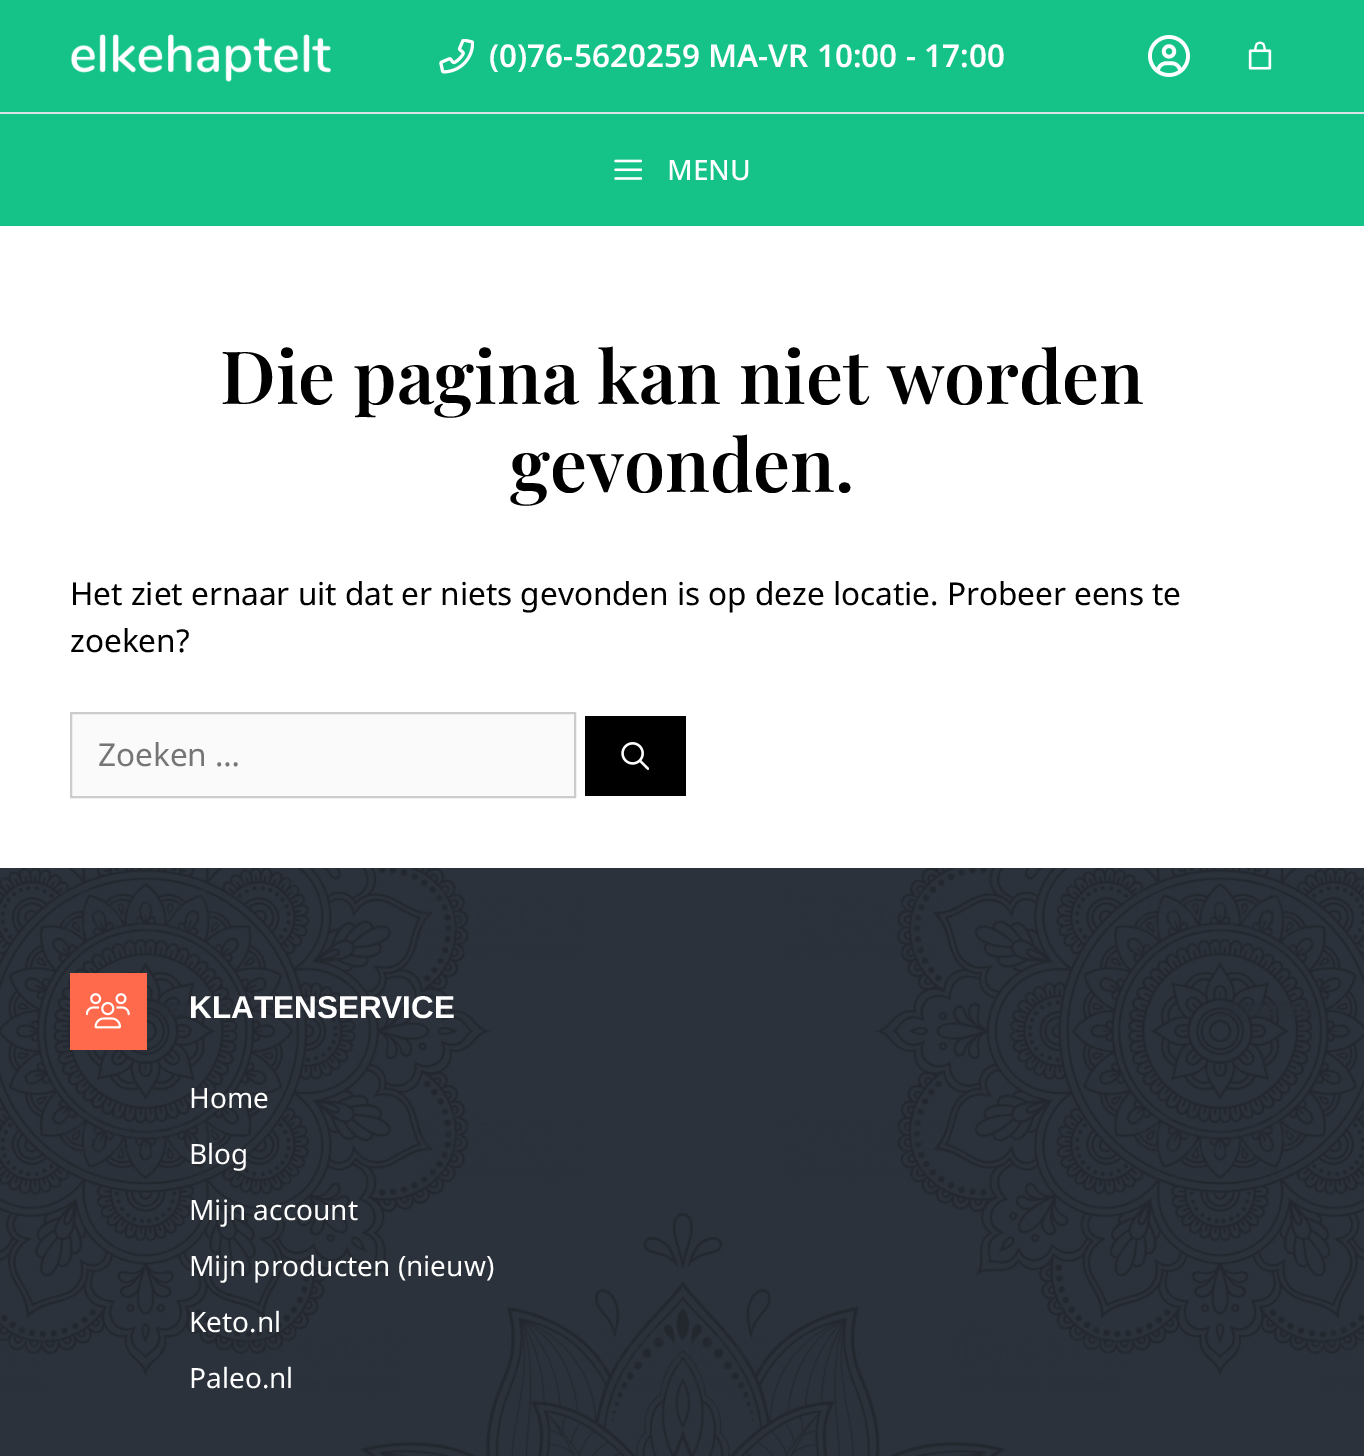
%!PS-Adobe-3.0
%%BoundingBox: 0 0 1364 1456
%%LanguageLevel: 3
%%Pages: 1
%%EndComments
%%BeginProlog
/setink { dup -16 bitshift 255 div exch dup -8 bitshift 255 and 255 div exch 255 and 255 div setrgbcolor } def
/usefont { [ exch dup neg 0 0 3 -1 roll 0 0 ] selectfont } def
/drawimage { 5 dict begin { /h /w /y /x /name } { exch def } forall
  gsave x y translate w h scale
  w h 8 [w 0 0 h 0 0] name (r) file false 3 colorimage grestore end } def
%%EndProlog
%%BeginSetup
<< /PageSize [1364 1456] >> setpagedevice
%%EndSetup
%%Page: 1 1
0 1456 translate 1 -1 scale
4 setmiterlimit
16#FFFFFF setink
0 0 1364 1456 rectfill
16#15C389 setink
0 0 1364 112 rectfill
16#DAE1E7 setink
0 112 1364 2 rectfill
(img1.raw) 70 34 261 48 drawimage
(img2.raw) 439 39 35 35 drawimage
/NotoSans-SemiBold 31.5 usefont
16#FFFFFF setink
489 67 moveto (\(0\)76-5620259 MA-VR 10:00 - 17:00) show
(img3.raw) 1148 35 42 42 drawimage
(img4.raw) 1248 41 24 29 drawimage
16#15C389 setink
0 114 1364 112 rectfill
(img5.raw) 614 159 28 21 drawimage
/NotoSans-Medium 28 usefont
16#FFFFFF setink
667 180 moveto (MENU) show
/PlayfairDisplay-SemiBold 73.5 usefont
16#000000 setink
220 404 moveto (Die pagina kan niet worden) show
510 492 moveto (gevonden.) show
/NotoSans-Regular 31.5 usefont
70 605 moveto (Het ziet ernaar uit dat er niets gevonden is op deze locatie. Probeer eens te) show
70 652 moveto (zoeken?) show
16#FAFAFA setink
71 713 moveto 575 713 lineto 575 797 lineto 71 797 lineto closepath gsave fill grestore
16#CCCCCC setink
2 setlinewidth
stroke
16#757575 setink
98 766 moveto (Zoeken …) show
16#000000 setink
585 716 101 80 rectfill
(img6.raw) 621 742 28 28 drawimage
(img7.raw) 0 868 1364 588 drawimage
16#FF6A4D setink
70 973 77 77 rectfill
(img8.raw) 86 993 44 36 drawimage
/LiberationSans-Bold 31.5 usefont
16#FFFFFF setink
189 1018 moveto (KLATENSERVICE) show
/NotoSans-Regular 28 usefont
[
    [(Home) 189 1108]
    [(Blog) 189 1164]
    [(Mijn account) 189 1220]
    [(Mijn producten \(nieuw\)) 189 1276]
    [(Keto.nl) 189 1332]
    [(Paleo.nl) 189 1388]
] { aload pop moveto show } forall
showpage
%%EOF
